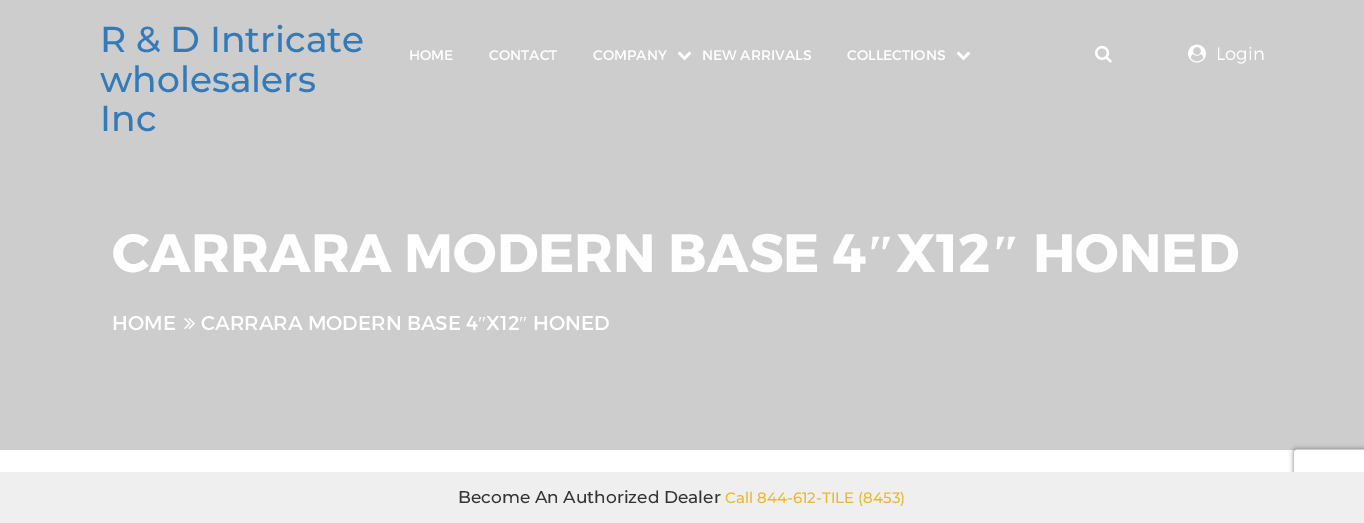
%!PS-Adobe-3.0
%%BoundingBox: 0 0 1364 523
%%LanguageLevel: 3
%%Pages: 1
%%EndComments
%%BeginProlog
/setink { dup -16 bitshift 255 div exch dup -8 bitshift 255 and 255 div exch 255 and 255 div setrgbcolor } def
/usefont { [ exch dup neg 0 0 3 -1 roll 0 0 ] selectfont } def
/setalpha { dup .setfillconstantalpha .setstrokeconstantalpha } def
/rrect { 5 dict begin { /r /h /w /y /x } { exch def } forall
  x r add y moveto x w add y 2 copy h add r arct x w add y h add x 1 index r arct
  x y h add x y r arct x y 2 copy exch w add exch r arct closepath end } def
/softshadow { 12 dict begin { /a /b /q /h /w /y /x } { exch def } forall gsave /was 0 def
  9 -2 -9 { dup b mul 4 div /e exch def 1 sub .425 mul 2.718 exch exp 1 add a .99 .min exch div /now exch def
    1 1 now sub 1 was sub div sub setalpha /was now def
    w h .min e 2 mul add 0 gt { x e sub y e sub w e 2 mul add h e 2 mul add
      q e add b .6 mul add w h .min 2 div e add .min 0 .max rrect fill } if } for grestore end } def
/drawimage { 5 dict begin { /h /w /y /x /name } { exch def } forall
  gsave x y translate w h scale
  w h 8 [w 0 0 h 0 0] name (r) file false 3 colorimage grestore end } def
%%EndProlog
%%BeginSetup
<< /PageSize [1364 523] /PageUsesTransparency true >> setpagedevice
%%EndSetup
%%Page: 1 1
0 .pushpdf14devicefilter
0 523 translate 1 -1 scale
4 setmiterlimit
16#FFFFFF setink
0 0 1364 523 rectfill
16#CDCDCD setink
0 0 1364 450 rectfill
/Montserrat-Medium 36 usefont
16#337AB7 setink
[
    [(R & D Intricate) 100 52]
    [(wholesalers) 100 92]
    [(Inc) 100 131]
] { aload pop moveto show } forall
/Montserrat-Regular 14 usefont
16#FFFFFF setink
[
    [(HOME) 409 60]
    [(CONTACT) 489 60]
    [(COMPANY) 593 60]
] { aload pop moveto show } forall
(img1.raw) 677 51 15 10 drawimage
702 60 moveto (NEW ARRIVALS) show
847 60 moveto (COLLECTIONS) show
(img1.raw) 956 51 15 10 drawimage
(img2.raw) 1095 45 17 18 drawimage
(img3.raw) 1188 44 18 19 drawimage
/Montserrat-Light 18 usefont
1216 60 moveto (Login) show
/Montserrat-Bold 54 usefont
112 272 moveto (CARRARA MODERN BASE 4) show
/LiberationSerif-Bold 54 usefont
866 272 moveto (″) show
/Montserrat-Bold 54 usefont
896 272 moveto (X12) show
/LiberationSerif-Bold 54 usefont
991 272 moveto (″) show
/Montserrat-Bold 54 usefont
1033 272 moveto (HONED) show
/Montserrat-Regular 20 usefont
112 330 moveto (HOME) show
(img4.raw) 184 318 11 11 drawimage
201 330 moveto (CARRARA MODERN BASE 4) show
/LiberationSerif-Regular 20 usefont
478 330 moveto (″) show
/Montserrat-Regular 20 usefont
486 330 moveto (X12) show
/LiberationSerif-Regular 20 usefont
519 330 moveto (″) show
/Montserrat-Regular 20 usefont
533 330 moveto (HONED) show
gsave
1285 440 moveto 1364 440 lineto 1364 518 lineto 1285 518 lineto closepath 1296 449 moveto 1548 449 lineto 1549 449 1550 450 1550 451 curveto 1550 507 lineto 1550 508 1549 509 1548 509 curveto 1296 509 lineto 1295 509 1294 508 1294 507 curveto 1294 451 lineto 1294 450 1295 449 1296 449 curveto closepath eoclip newpath
16#808080 setink
1294 449 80 60 2 2.5 1 softshadow
grestore
16#EFEFEF setink
0 472 1364 51 rectfill
/Montserrat-Medium 17 usefont
16#333333 setink
458 503 moveto (Become An Authorized Dealer) show
/Montserrat-Medium 15 usefont
16#E8B92C setink
725 503 moveto (Call 844-612-TILE \(8453\)) show
.poppdf14devicefilter showpage
%%EOF
